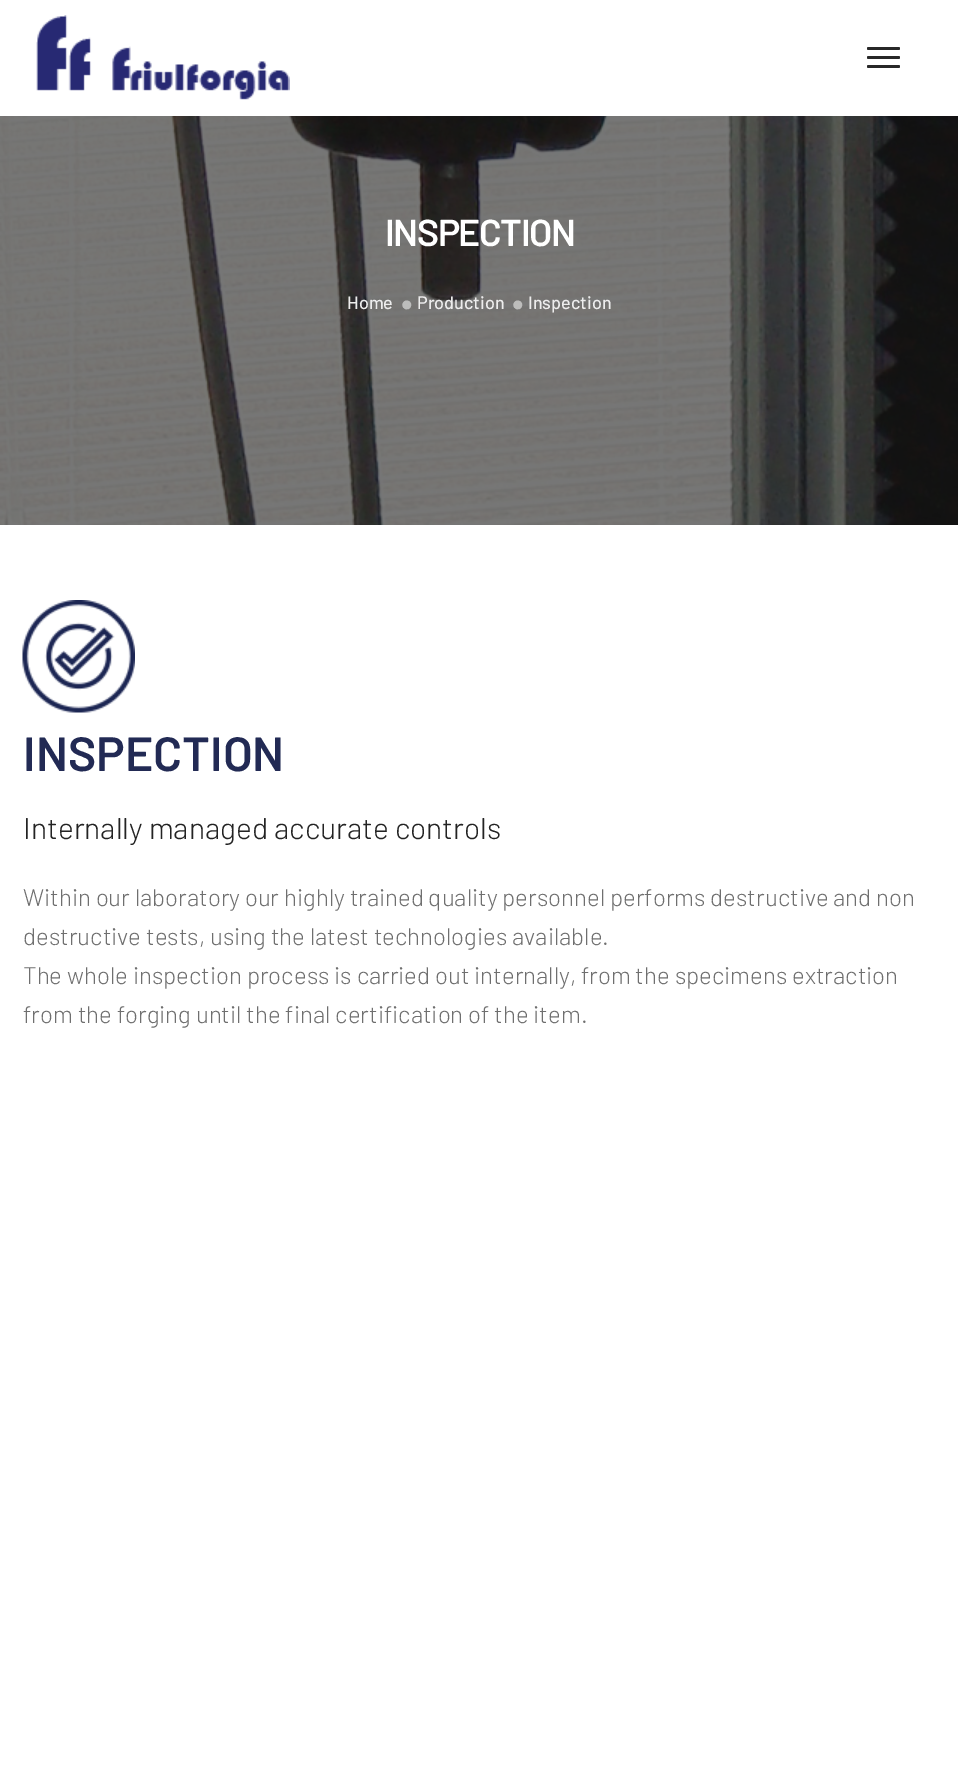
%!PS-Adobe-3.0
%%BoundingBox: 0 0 958 1782
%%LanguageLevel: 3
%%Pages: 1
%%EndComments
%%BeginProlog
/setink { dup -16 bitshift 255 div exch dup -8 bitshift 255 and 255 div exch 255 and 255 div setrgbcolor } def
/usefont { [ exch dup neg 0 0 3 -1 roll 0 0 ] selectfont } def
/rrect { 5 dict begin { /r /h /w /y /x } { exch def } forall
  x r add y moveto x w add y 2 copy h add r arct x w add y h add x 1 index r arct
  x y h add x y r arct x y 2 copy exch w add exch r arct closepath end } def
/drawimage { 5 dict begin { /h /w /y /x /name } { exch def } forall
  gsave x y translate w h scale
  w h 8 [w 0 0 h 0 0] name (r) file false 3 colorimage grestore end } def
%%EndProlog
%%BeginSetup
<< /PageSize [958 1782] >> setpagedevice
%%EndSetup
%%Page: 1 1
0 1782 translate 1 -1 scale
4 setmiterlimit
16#FFFFFF setink
0 0 958 1782 rectfill
(img1.raw) 36 15 254 85 drawimage
16#282828 setink
867 47 33 3 1.5 rrect fill
867 56 33 3 1.5 rrect fill
867 65 33 3 1.5 rrect fill
(img2.raw) 0 116 958 409 drawimage
/Barlow-SemiBold 37.5 usefont
16#FFFFFF setink
385 246 moveto -1.5 0 (INSPECTION) ashow
/Barlow-Medium 18 usefont
16#EDEDED setink
347 309 moveto (Home) show
/Barlow-Medium 37.5 usefont
16#BDBDBC setink
401 315 moveto (•) show
/Barlow-Medium 18 usefont
16#EDEDED setink
417 309 moveto (Production) show
/Barlow-Medium 37.5 usefont
16#BDBDBC setink
512 315 moveto (•) show
/Barlow-Medium 18 usefont
16#EDEDED setink
528 309 moveto (Inspection) show
(img3.raw) 22 600 113 113 drawimage
/Barlow-SemiBold 48 usefont
16#222A54 setink
23 771 moveto (INSPECTION) show
/Barlow-Light 30 usefont
16#232323 setink
23 839 moveto (Internally managed accurate controls) show
/Barlow-Light 24 usefont
16#6F6F6F setink
[
    [(Within our laboratory our highly trained quality personnel performs destructive and non) 23 906]
    [(destructive tests, using the latest technologies available.) 23 945]
    [(The whole inspection process is carried out internally, from the specimens extraction) 23 984]
    [(from the forging until the final certification of the item.) 23 1023]
] { aload pop moveto show } forall
showpage
%%EOF
